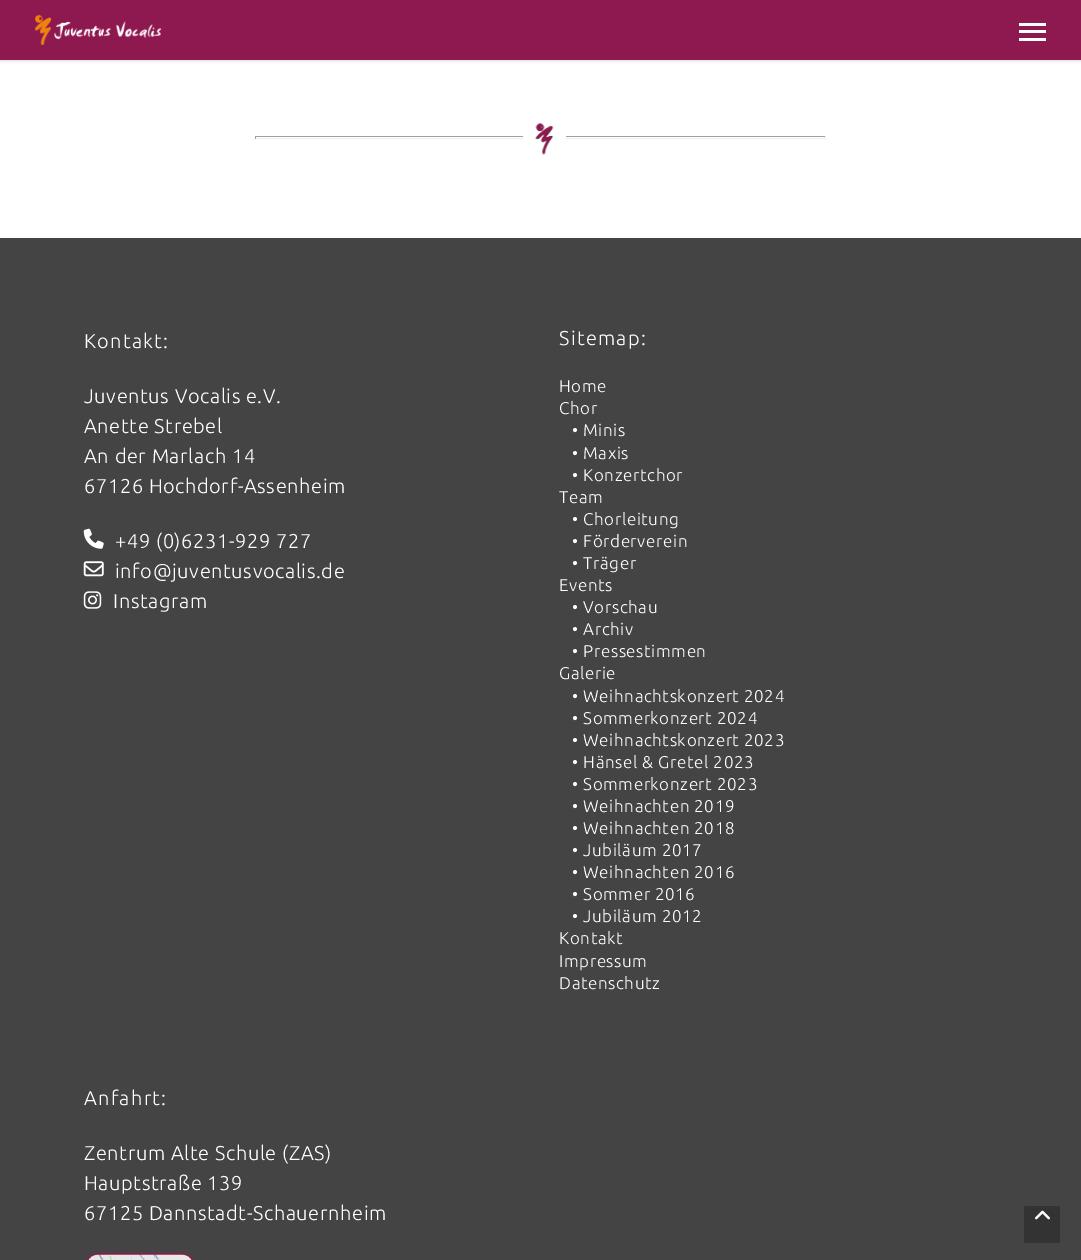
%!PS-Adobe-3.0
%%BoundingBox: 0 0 1081 1260
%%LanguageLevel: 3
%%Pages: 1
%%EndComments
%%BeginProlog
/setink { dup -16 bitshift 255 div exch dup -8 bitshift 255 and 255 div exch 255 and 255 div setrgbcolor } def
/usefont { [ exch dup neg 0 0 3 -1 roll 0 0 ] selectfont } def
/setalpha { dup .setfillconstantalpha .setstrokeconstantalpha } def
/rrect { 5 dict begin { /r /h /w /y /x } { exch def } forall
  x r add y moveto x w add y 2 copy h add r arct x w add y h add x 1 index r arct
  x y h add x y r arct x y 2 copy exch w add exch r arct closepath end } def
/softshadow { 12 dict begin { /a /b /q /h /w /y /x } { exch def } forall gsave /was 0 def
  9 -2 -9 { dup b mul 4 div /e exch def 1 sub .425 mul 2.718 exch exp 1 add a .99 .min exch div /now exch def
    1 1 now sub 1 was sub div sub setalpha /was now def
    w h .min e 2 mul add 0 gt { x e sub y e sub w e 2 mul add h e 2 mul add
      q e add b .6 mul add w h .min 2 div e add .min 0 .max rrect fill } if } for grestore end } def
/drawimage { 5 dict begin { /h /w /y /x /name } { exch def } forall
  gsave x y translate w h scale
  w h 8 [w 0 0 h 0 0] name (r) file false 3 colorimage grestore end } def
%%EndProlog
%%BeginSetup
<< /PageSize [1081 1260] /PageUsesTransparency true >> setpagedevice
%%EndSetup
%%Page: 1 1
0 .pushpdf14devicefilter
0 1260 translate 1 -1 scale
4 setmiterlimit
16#FFFFFF setink
0 0 1081 1260 rectfill
16#000000 setink
0 0 1081 60 0 2 0.22 softshadow
16#8E1950 setink
0 0 1081 60 rectfill
(img1.raw) 35 15 126 30 drawimage
[
    [1019 23 27 3 16#FFFFFF]
    [1019 38 27 3 16#FFFFFF]
    [1019 30 27 3 16#FFFFFF]
    [255 136 571 1 16#9F9F9F]
    [825 136 1 3 16#EEEEEE]
    [255 138 571 1 16#EEEEEE]
    [523 136 43 3 16#FFFFFF]
] { aload pop setink rectfill } forall
(img2.raw) 535 123 19 32 drawimage
16#9F9F9F setink
255 136 1 3 rectfill
16#444444 setink
0 238 1081 1022 rectfill
/Ubuntu-Light 20 usefont
16#FFFFFF setink
84 348 moveto 1.25 0 (Kontakt:) ashow
84 403 moveto 0.6 0 (Juventus Vocalis e.V.) ashow
84 433 moveto 0.6 0 (Anette Strebel) ashow
84 463 moveto 0.6 0 (An der Marlach 14) ashow
84 493 moveto 0.6 0 (67126 Hochdorf-Assenheim) ashow
(img3.raw) 83 528 21 21 drawimage
115 548 moveto 0.6 0 (+49 \(0\)6231-929 727) ashow
(img4.raw) 83 561 21 16 drawimage
115 578 moveto 0.6 0 (info@juventusvocalis.de) ashow
(img5.raw) 83 591 19 18 drawimage
113 608 moveto 0.6 0 (Instagram) ashow
559 345 moveto 1.25 0 (Sitemap:) ashow
/Ubuntu-Light 17 usefont
559 392 moveto 0.6 0 (Home) ashow
559 414 moveto 0.6 0 (Chor) ashow
572 436 moveto 0.6 0 (• Minis) ashow
572 459 moveto 0.6 0 (• Maxis) ashow
572 481 moveto 0.6 0 (• Konzertchor) ashow
559 503 moveto 0.6 0 (Team) ashow
572 525 moveto 0.6 0 (• Chorleitung) ashow
572 547 moveto 0.6 0 (• Förderverein) ashow
572 569 moveto 0.6 0 (• Träger) ashow
559 591 moveto 0.6 0 (Events) ashow
572 613 moveto 0.6 0 (• Vorschau) ashow
572 635 moveto 0.6 0 (• Archiv) ashow
572 657 moveto 0.6 0 (• Pressestimmen) ashow
559 679 moveto 0.6 0 (Galerie) ashow
572 702 moveto 0.6 0 (• Weihnachtskonzert 2024) ashow
572 724 moveto 0.6 0 (• Sommerkonzert 2024) ashow
572 746 moveto 0.6 0 (• Weihnachtskonzert 2023) ashow
572 768 moveto 0.6 0 (• Hänsel & Gretel 2023) ashow
572 790 moveto 0.6 0 (• Sommerkonzert 2023) ashow
572 812 moveto 0.6 0 (• Weihnachten 2019) ashow
572 834 moveto 0.6 0 (• Weihnachten 2018) ashow
572 856 moveto 0.6 0 (• Jubiläum 2017) ashow
572 878 moveto 0.6 0 (• Weihnachten 2016) ashow
572 900 moveto 0.6 0 (• Sommer 2016) ashow
572 922 moveto 0.6 0 (• Jubiläum 2012) ashow
559 944 moveto 0.6 0 (Kontakt) ashow
559 967 moveto 0.6 0 (Impressum) ashow
559 989 moveto 0.6 0 (Datenschutz) ashow
/Ubuntu-Light 20 usefont
84 1105 moveto 1.25 0 (Anfahrt:) ashow
84 1160 moveto 0.6 0 (Zentrum Alte Schule \(ZAS\)) ashow
84 1190 moveto 0.6 0 (Hauptstraße 139) ashow
84 1220 moveto 0.6 0 (67125 Dannstadt-Schauernheim) ashow
16#8E1950 setink
3 setlinewidth
85.5 1254.5 109 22 13.5 rrect stroke
(img6.raw) 88 1254 104 6 drawimage
16#333333 setink
1024 1206 36 37 2.5 rrect fill
(img7.raw) 1035 1210 15 10 drawimage
.poppdf14devicefilter showpage
%%EOF
